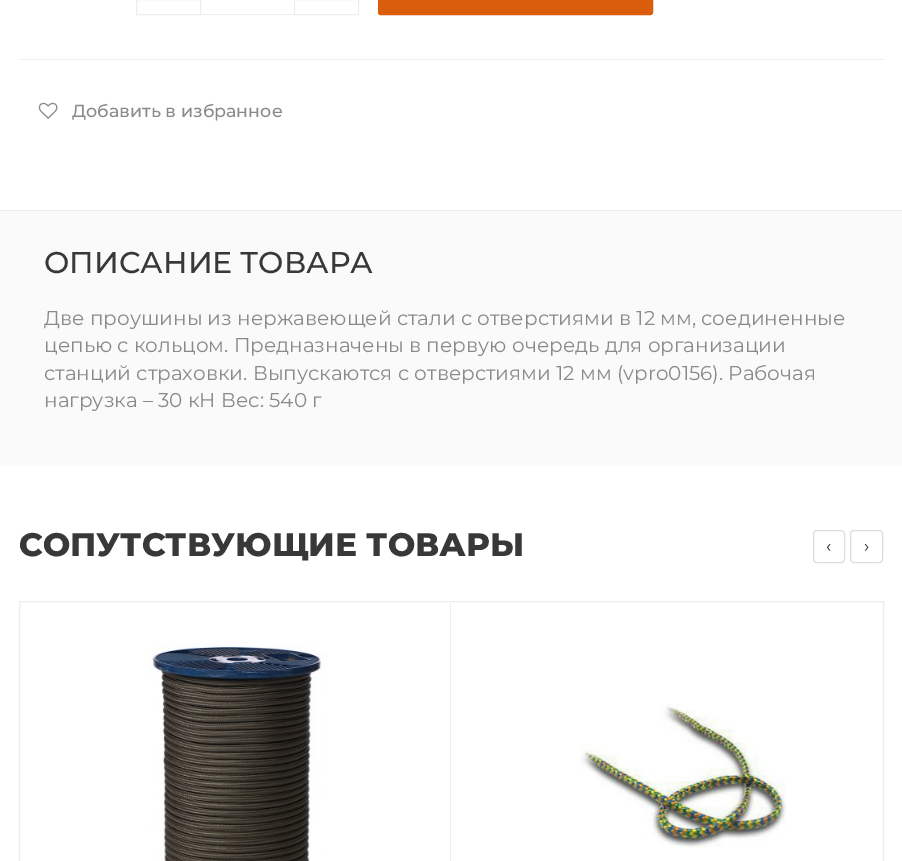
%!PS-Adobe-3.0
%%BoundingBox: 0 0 902 861
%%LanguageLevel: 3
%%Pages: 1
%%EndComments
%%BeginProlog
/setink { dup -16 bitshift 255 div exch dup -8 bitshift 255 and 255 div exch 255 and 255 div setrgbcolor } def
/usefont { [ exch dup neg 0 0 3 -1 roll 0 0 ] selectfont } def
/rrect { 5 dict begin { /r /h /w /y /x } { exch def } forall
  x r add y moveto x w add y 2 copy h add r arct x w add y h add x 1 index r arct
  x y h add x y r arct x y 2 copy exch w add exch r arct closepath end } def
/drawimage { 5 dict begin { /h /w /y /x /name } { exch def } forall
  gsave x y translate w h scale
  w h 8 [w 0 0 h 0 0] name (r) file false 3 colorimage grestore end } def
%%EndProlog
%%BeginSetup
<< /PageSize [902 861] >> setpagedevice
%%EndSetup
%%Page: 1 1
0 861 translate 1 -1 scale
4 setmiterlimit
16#FFFFFF setink
0 0 902 861 rectfill
16#EEEEEE setink
19 59 865 1 rectfill
136.5 -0.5 64 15 rectstroke
201 14 93 1 rectfill
294.5 -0.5 64 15 rectstroke
16#D95D0B setink
378.5 -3.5 274 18 2 rrect gsave fill grestore
stroke
(img1.raw) 38 102 20 17 drawimage
/Montserrat-Medium 17.5 usefont
16#8A8A8A setink
72 117 moveto (Добавить в избранное) show
16#FAFAFA setink
0 211 902 255 rectfill
16#EEEEEE setink
0 210 902 1 rectfill
/Montserrat-Medium 30 usefont
16#383838 setink
44 273 moveto (ОПИСАНИЕ ТОВАРА) show
/Montserrat-Regular 20 usefont
16#8A8A8A setink
[
    [(Две проушины из нержавеющей стали с отверстиями в 12 мм, соединенные) 44 325]
    [(цепью с кольцом. Предназначены в первую очередь для организации) 44 352]
    [(станций страховки. Выпускаются с отверстиями 12 мм \(vpro0156\). Рабочая) 44 380]
    [(нагрузка – 30 кН Вес: 540 г) 44 407]
] { aload pop moveto show } forall
/Montserrat-ExtraBold 32.5 usefont
16#383838 setink
19 556 moveto (СОПУТСТВУЮЩИЕ ТОВАРЫ) show
16#ECECEC setink
19.5 601.5 864 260 rectstroke
16#DDDDDD setink
813.5 530.5 31 32 3.5 rrect stroke
/Montserrat-Regular 17.5 usefont
16#262626 setink
826 552 moveto (‹) show
16#DDDDDD setink
850.5 530.5 32 32 3.5 rrect stroke
16#262626 setink
864 552 moveto (›) show
16#EEEEEE setink
450 603 1 258 rectfill
(img2.raw) 149 642 178 219 drawimage
(img3.raw) 579 704 208 144 drawimage
showpage
%%EOF
